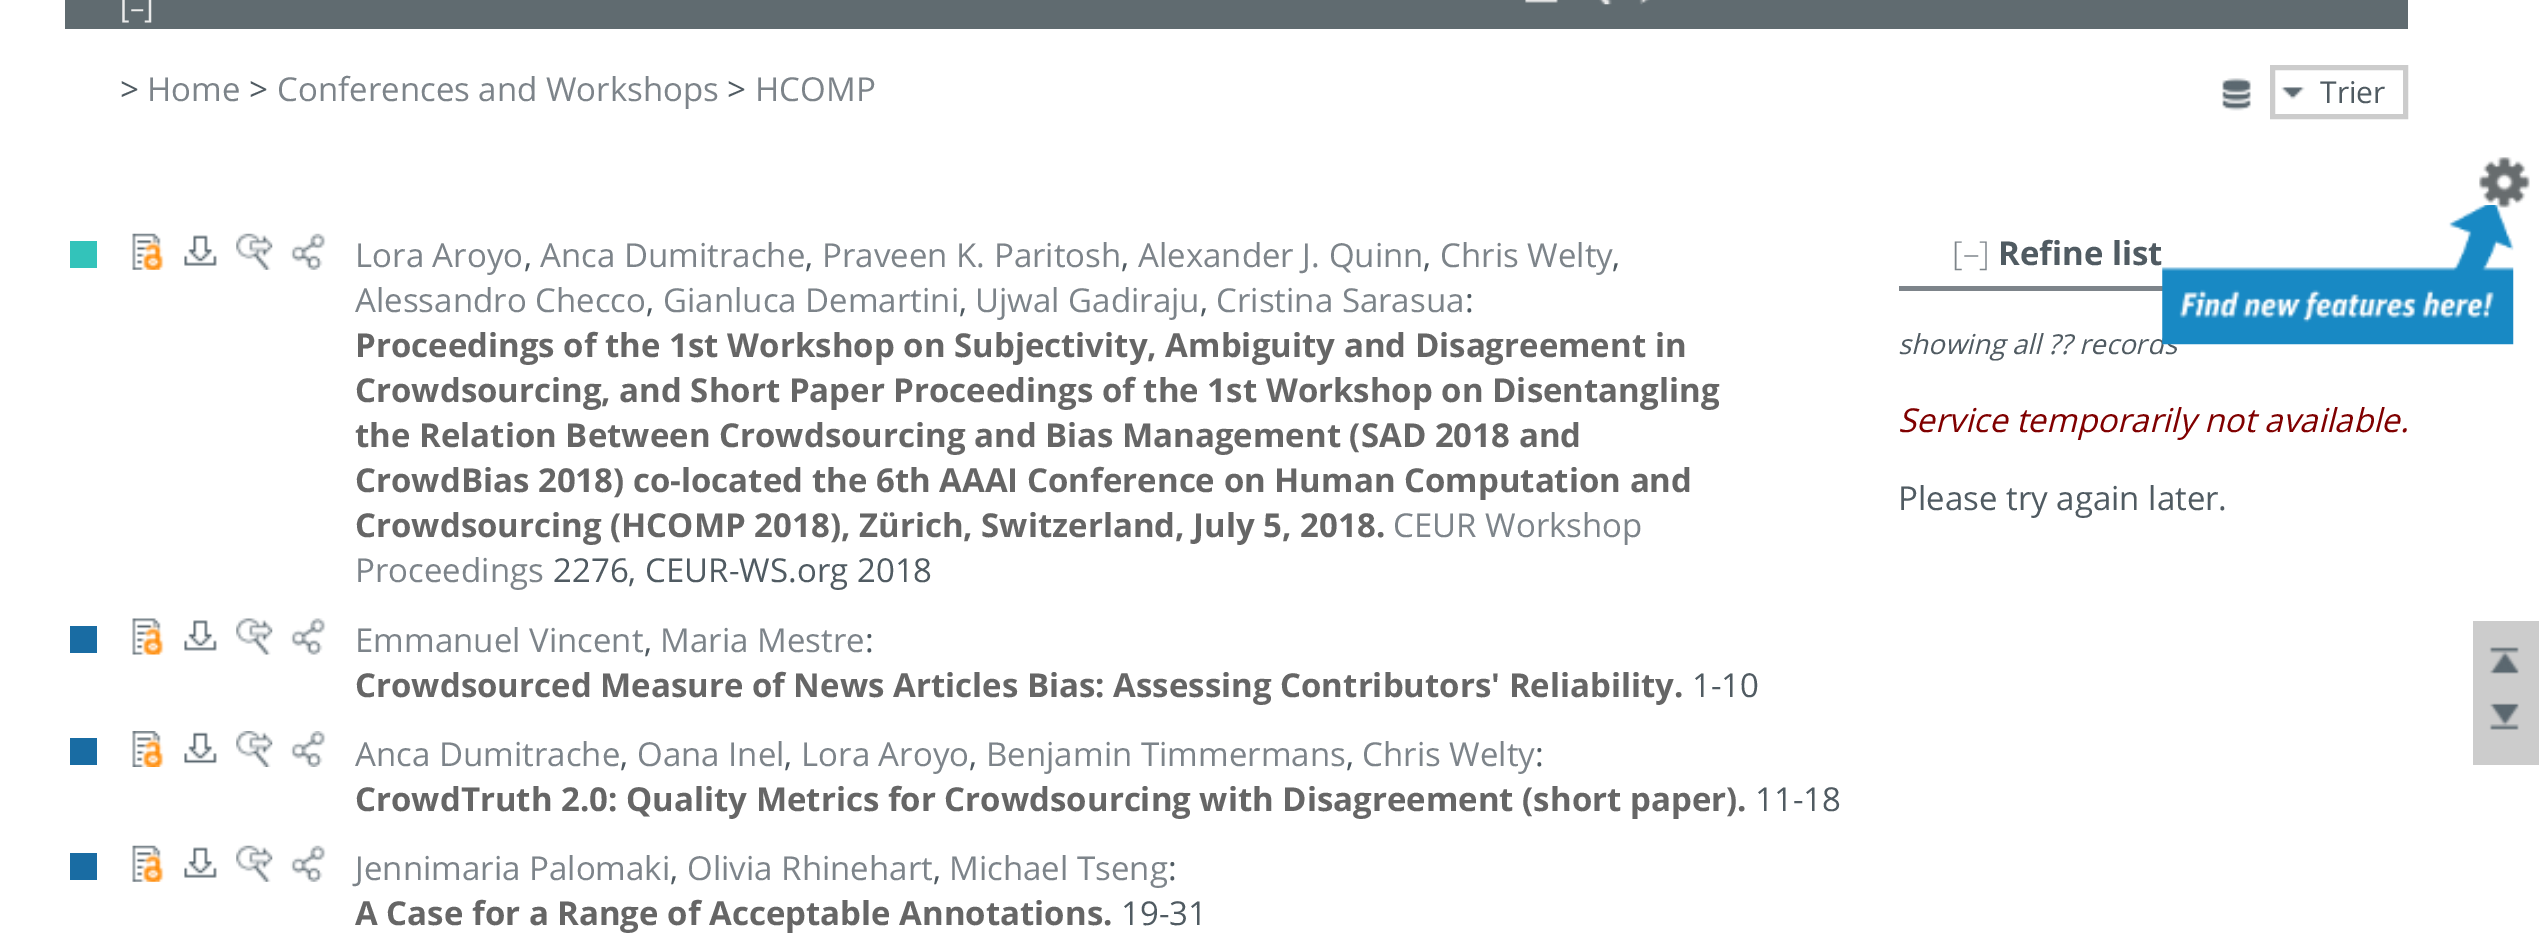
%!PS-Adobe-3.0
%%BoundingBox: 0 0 2539 944
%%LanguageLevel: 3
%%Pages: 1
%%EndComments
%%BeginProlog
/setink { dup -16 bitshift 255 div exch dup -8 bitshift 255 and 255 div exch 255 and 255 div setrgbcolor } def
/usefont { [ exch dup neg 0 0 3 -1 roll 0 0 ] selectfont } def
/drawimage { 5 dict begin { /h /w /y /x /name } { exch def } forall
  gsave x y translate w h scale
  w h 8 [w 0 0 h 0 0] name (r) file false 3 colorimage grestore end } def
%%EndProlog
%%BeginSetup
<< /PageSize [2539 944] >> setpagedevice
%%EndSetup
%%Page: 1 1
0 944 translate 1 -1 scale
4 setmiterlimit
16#FFFFFF setink
0 0 2539 944 rectfill
16#606B70 setink
65 0 2343 29 rectfill
/OpenSans-Regular 29 usefont
16#EBEBEB setink
120 18 moveto ([–]) show
(img1.raw) 1525 0 33 3 drawimage
(img2.raw) 1599 0 13 5 drawimage
(img3.raw) 1639 0 11 5 drawimage
/OpenSans-Regular 33 usefont
16#505B62 setink
120 101 moveto (>) show
16#7D848A setink
147 101 moveto (Home) show
16#505B62 setink
249 101 moveto (>) show
16#7D848A setink
277 101 moveto (Conferences and Workshops) show
16#505B62 setink
727 101 moveto (>) show
16#7D848A setink
755 101 moveto (HCOMP) show
(img4.raw) 2222 78 29 33 drawimage
(img5.raw) 2281 87 24 13 drawimage
16#CCCCCC setink
5 setlinewidth
2272.5 67.5 133 49 rectstroke
/OpenSans-Regular 30 usefont
16#505B62 setink
2320 103 moveto (Trier) show
16#7D848A setink
1899 286 264 5 rectfill
/OpenSans-Italic 27.5 usefont
16#505B62 setink
1898 354 moveto (showing all ?? records) show
(img7.raw) 2162 205 352 140 drawimage
(img6.raw) 2479 157 51 51 drawimage
16#33C3BA setink
70 241 27 27 rectfill
(img8.raw) 132 233 32 37 drawimage
(img9.raw) 184 235 33 31 drawimage
(img10.raw) 236 233 37 37 drawimage
(img11.raw) 290 233 36 37 drawimage
/OpenSans-Regular 33 usefont
16#7D848A setink
355 267 moveto (Lora Aroyo) show
16#505B62 setink
524 267 moveto (,) show
16#7D848A setink
540 267 moveto (Anca Dumitrache) show
16#505B62 setink
805 267 moveto (,) show
16#7D848A setink
822 267 moveto (Praveen K. Paritosh) show
16#505B62 setink
1121 267 moveto (,) show
16#7D848A setink
1138 267 moveto (Alexander J. Quinn) show
16#505B62 setink
1423 267 moveto (,) show
16#7D848A setink
1440 267 moveto (Chris Welty) show
16#505B62 setink
1612 267 moveto (,) show
16#7D848A setink
355 312 moveto (Alessandro Checco) show
16#505B62 setink
646 312 moveto (,) show
16#7D848A setink
663 312 moveto (Gianluca Demartini) show
16#505B62 setink
959 312 moveto (,) show
16#7D848A setink
975 312 moveto (Ujwal Gadiraju) show
16#505B62 setink
1200 312 moveto (,) show
16#7D848A setink
1216 312 moveto (Cristina Sarasua) show
16#505B62 setink
1465 312 moveto (:) show
/OpenSans-Bold 33 usefont
16#666666 setink
[
    [(Proceedings of the 1st Workshop on Subjectivity, Ambiguity and Disagreement in) 355 357]
    [(Crowdsourcing, and Short Paper Proceedings of the 1st Workshop on Disentangling) 355 402]
    [(the Relation Between Crowdsourcing and Bias Management \(SAD 2018 and) 355 447]
    [(CrowdBias 2018\) co-located the 6th AAAI Conference on Human Computation and) 355 492]
    [(Crowdsourcing \(HCOMP 2018\), Zürich, Switzerland, July 5, 2018.) 355 537]
] { aload pop moveto show } forall
/OpenSans-Regular 33 usefont
16#7D848A setink
1393 537 moveto (CEUR Workshop) show
355 582 moveto (Proceedings) show
16#505B62 setink
553 582 moveto (2276, CEUR-WS.org 2018) show
16#196CA3 setink
70 626 27 27 rectfill
(img12.raw) 132 618 32 37 drawimage
(img13.raw) 184 620 33 31 drawimage
(img14.raw) 236 618 37 37 drawimage
(img15.raw) 290 618 36 37 drawimage
16#7D848A setink
355 652 moveto (Emmanuel Vincent) show
16#505B62 setink
644 652 moveto (,) show
16#7D848A setink
660 652 moveto (Maria Mestre) show
16#505B62 setink
865 652 moveto (:) show
/OpenSans-Bold 33 usefont
16#666666 setink
355 697 moveto (Crowdsourced Measure of News Articles Bias: Assessing Contributors' Reliability.) show
/OpenSans-Regular 33 usefont
16#505B62 setink
1692 697 moveto (1-10) show
16#196CA3 setink
70 738 27 27 rectfill
(img16.raw) 132 731 32 36 drawimage
(img17.raw) 184 732 33 32 drawimage
(img18.raw) 236 731 37 36 drawimage
(img19.raw) 290 731 36 36 drawimage
16#7D848A setink
355 766 moveto (Anca Dumitrache) show
16#505B62 setink
620 766 moveto (,) show
16#7D848A setink
637 766 moveto (Oana Inel) show
16#505B62 setink
784 766 moveto (,) show
16#7D848A setink
801 766 moveto (Lora Aroyo) show
16#505B62 setink
969 766 moveto (,) show
16#7D848A setink
986 766 moveto (Benjamin Timmermans) show
16#505B62 setink
1346 766 moveto (,) show
16#7D848A setink
1362 766 moveto (Chris Welty) show
16#505B62 setink
1535 766 moveto (:) show
/OpenSans-Bold 33 usefont
16#666666 setink
355 811 moveto (CrowdTruth 2.0: Quality Metrics for Crowdsourcing with Disagreement \(short paper\).) show
/OpenSans-Regular 33 usefont
16#505B62 setink
1755 811 moveto (11-18) show
16#196CA3 setink
70 853 27 27 rectfill
(img8.raw) 132 845 32 37 drawimage
(img9.raw) 184 847 33 31 drawimage
(img10.raw) 236 845 37 37 drawimage
(img11.raw) 290 845 36 37 drawimage
16#7D848A setink
355 880 moveto (Jennimaria Palomaki) show
16#505B62 setink
670 880 moveto (,) show
16#7D848A setink
687 880 moveto (Olivia Rhinehart) show
16#505B62 setink
933 880 moveto (,) show
16#7D848A setink
949 880 moveto (Michael Tseng) show
16#505B62 setink
1168 880 moveto (:) show
/OpenSans-Bold 33 usefont
16#666666 setink
355 925 moveto (A Case for a Range of Acceptable Annotations.) show
/OpenSans-Regular 33 usefont
16#505B62 setink
1121 925 moveto (19-31) show
/OpenSans-Light 33 usefont
16#7D848A setink
1952 265 moveto ([–]) show
/OpenSans-Bold 33 usefont
16#505B62 setink
1998 265 moveto (Refine list) show
/OpenSans-Italic 33 usefont
16#800000 setink
1898 432 moveto (Service temporarily not available.) show
/OpenSans-Regular 33 usefont
16#505B62 setink
1898 510 moveto (Please try again later.) show
16#CCCCCC setink
2473 621 66 144 rectfill
(img20.raw) 2489 647 30 27 drawimage
(img21.raw) 2489 703 30 27 drawimage
showpage
%%EOF
